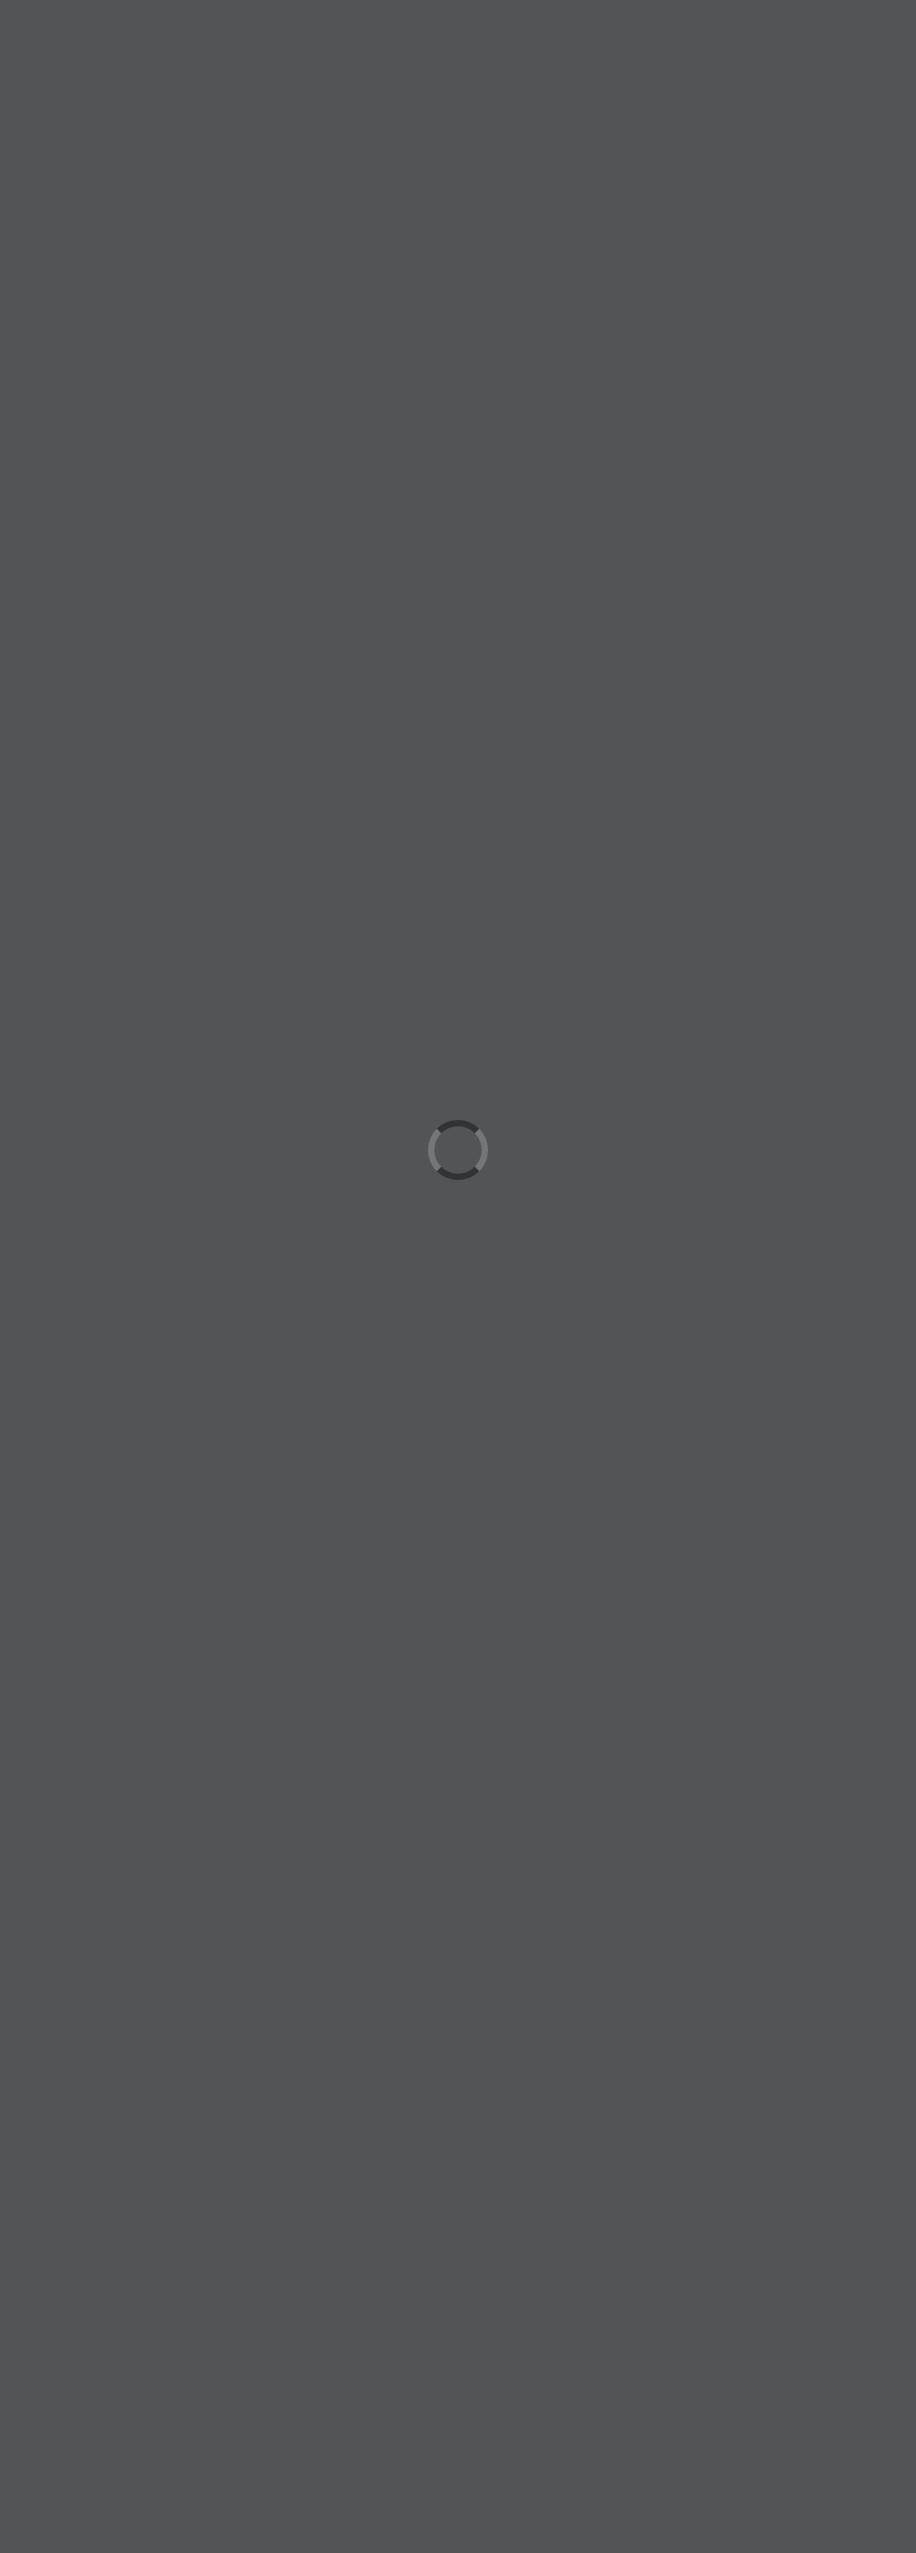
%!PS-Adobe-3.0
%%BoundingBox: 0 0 916 2553
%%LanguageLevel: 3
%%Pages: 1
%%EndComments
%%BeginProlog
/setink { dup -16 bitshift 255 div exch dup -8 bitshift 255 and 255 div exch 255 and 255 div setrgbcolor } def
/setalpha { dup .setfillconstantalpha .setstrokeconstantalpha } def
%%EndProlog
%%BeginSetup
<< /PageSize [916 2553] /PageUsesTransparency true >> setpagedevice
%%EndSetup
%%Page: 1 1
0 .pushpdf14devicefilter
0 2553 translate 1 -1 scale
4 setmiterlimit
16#515558 setink
0 0 916 2553 rectfill
16#313335 setink
6 setlinewidth
439 1131 moveto 449.5 1120.5 466.5 1120.5 477 1131 curveto stroke
0.2 setalpha
16#FFFFFF setink
477 1131 moveto 487.5 1141.5 487.5 1158.5 477 1169 curveto stroke
0.4 setalpha
16#000000 setink
477 1169 moveto 466.5 1179.5 449.5 1179.5 439 1169 curveto stroke
0.2 setalpha
16#FFFFFF setink
439 1169 moveto 428.5 1158.5 428.5 1141.5 439 1131 curveto stroke
.poppdf14devicefilter showpage
%%EOF
